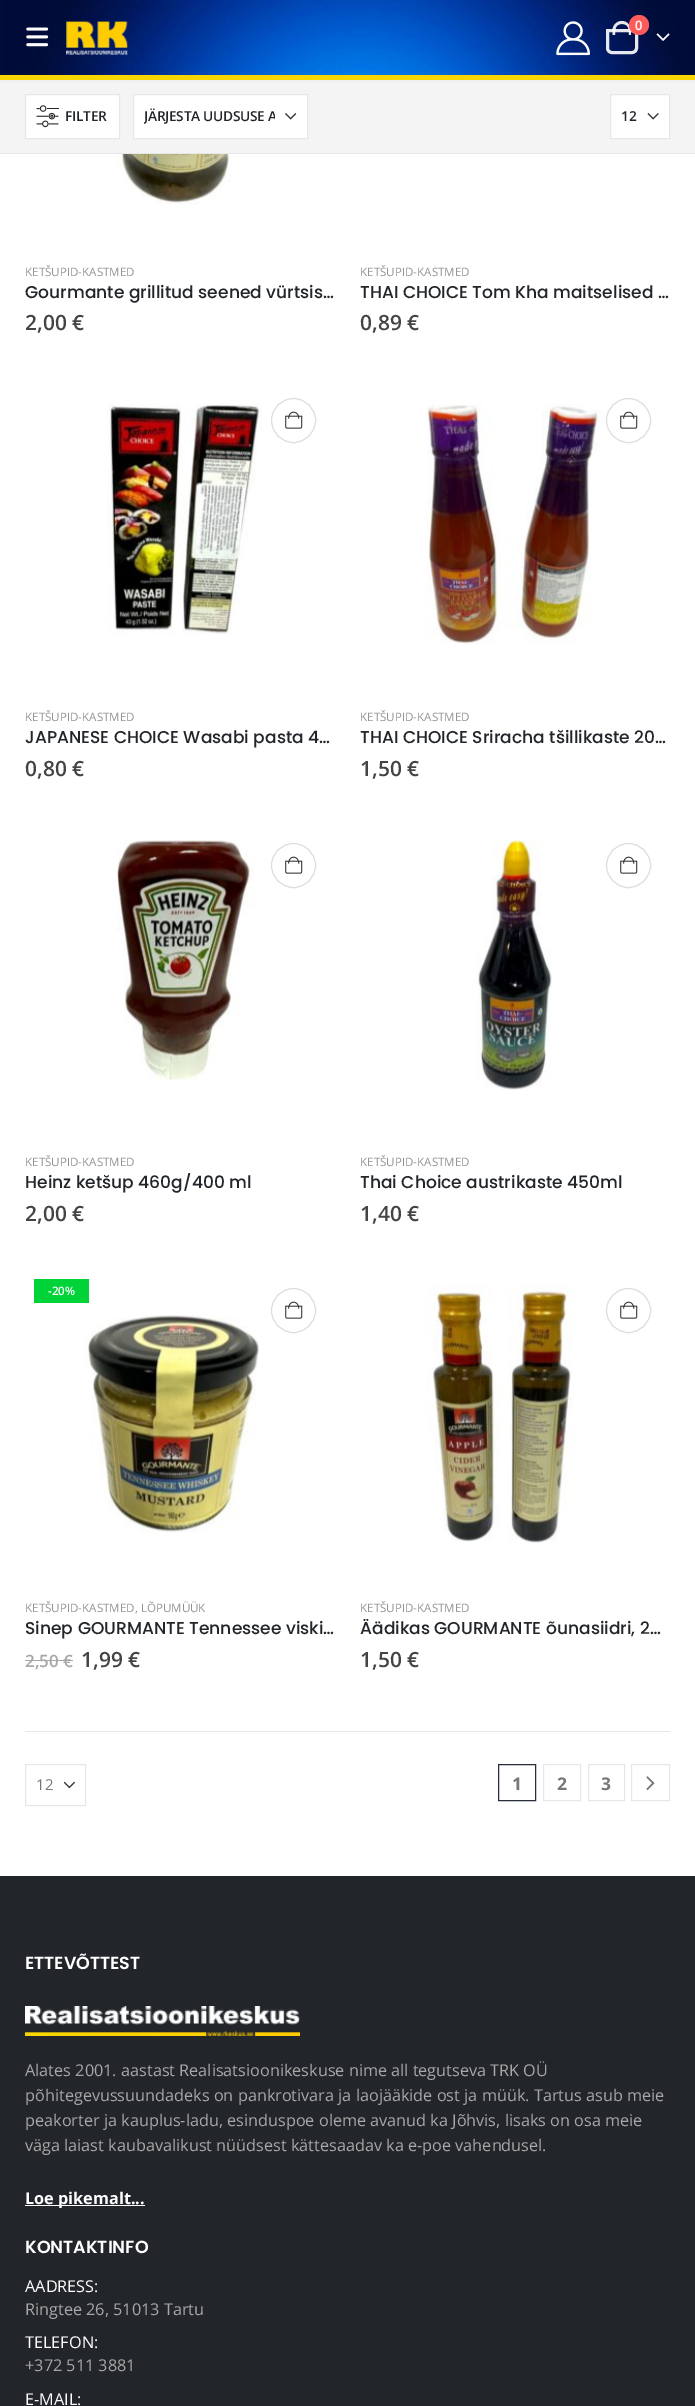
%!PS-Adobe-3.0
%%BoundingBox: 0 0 695 2406
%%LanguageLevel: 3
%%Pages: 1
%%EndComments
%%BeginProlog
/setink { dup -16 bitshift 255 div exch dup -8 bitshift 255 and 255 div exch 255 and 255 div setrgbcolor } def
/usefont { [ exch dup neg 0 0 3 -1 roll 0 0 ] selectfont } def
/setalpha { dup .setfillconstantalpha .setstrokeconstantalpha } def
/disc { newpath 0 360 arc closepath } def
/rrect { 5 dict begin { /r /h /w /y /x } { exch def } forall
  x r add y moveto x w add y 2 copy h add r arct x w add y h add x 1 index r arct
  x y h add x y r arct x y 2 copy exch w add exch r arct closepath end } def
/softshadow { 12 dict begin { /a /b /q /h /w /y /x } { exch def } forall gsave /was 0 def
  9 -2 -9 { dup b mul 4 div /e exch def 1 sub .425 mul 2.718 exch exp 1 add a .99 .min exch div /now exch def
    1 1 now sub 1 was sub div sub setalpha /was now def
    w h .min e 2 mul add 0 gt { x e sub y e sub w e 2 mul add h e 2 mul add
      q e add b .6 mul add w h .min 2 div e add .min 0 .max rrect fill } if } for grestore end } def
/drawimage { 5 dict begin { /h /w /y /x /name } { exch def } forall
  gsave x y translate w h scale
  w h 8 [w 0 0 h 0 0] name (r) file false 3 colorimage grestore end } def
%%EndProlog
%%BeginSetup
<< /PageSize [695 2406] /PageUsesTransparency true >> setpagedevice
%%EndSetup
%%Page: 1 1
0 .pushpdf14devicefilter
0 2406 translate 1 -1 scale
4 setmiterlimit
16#FFFFFF setink
0 0 695 2406 rectfill
16#F4F4F4 setink
0 80 695 73 rectfill
16#000000 setink
0 0 695 80 0 2 0.06 softshadow
(img1.raw) 0 0 695 75 drawimage
16#F7D602 setink
0 75 695 5 rectfill
(img2.raw) 26 27 23 20 drawimage
(img3.raw) 66 21 62 34 drawimage
(img4.raw) 556 21 34 35 drawimage
0.9 setalpha
16#FFFFFF setink
3 setlinewidth
607.5 30.5 moveto 636.5 30.5 lineto 636.5 48 lineto 636.5 50.5 634.5 52.5 632 52.5 curveto 612 52.5 lineto 609.5 52.5 607.5 50.5 607.5 48 curveto closepath stroke
622 21 moveto 627 21 631 25.5 631 30.5 curveto 631 35 lineto 612.5 35 lineto 612.5 30.5 lineto 612.5 25.5 616.5 21 622 21 curveto closepath 622 24 moveto 629 24 629 30 629 35 curveto 615 35 lineto 615 30 615 24 622 24 curveto closepath eofill
1 setalpha
16#FF5B5B setink
639 25 10 disc fill
/OpenSans-SemiBold 13 usefont
16#FFFFFF setink
635 30 moveto (0) show
(img5.raw) 656 33 14 8 drawimage
16#E7E7E7 setink
0 153 695 1 rectfill
16#FFFFFF setink
25.5 94.5 moveto 119.5 94.5 lineto 119.5 138.5 lineto 25.5 138.5 lineto closepath gsave fill grestore
16#E7E7E7 setink
1 setlinewidth
stroke
(img6.raw) 36 105 23 23 drawimage
/OpenSans-SemiBold 13.75 usefont
16#222529 setink
65 121 moveto -0.3 0 (FILTER) ashow
16#FFFFFF setink
134 95 173 43 rectfill
(img7.raw) 285 113 12 7 drawimage
16#E7E7E7 setink
133.5 94.5 174 44 rectstroke
gsave
144 106 131 19 rectclip
16#222529 setink
144 121 moveto -0.3 0 (JÄRJESTA UUDSUSE A) ashow
grestore
16#FFFFFF setink
611 95 58 43 rectfill
(img8.raw) 647 113 12 7 drawimage
16#E7E7E7 setink
610.5 94.5 59 44 rectstroke
16#222529 setink
621 121 moveto -0.3 0 (12) ashow
(img9.raw) 115 154 149 51 drawimage
/OpenSans-Regular 11.6 usefont
16#929292 setink
25 276 moveto (KETŠUPID-KASTMED) show
/Poppins-Medium 17.1 usefont
16#222529 setink
25 298 moveto (Gourmante grillitud seened vürtsis…) show
/OpenSans-SemiBold 21 usefont
16#444444 setink
25 330 moveto (2,00 €) show
/OpenSans-Regular 11.6 usefont
16#929292 setink
360 276 moveto (KETŠUPID-KASTMED) show
/Poppins-Medium 17.1 usefont
16#222529 setink
360 298 moveto (THAI CHOICE Tom Kha maitselised …) show
/OpenSans-SemiBold 21 usefont
16#444444 setink
360 330 moveto (0,89 €) show
(img10.raw) 107 403 155 232 drawimage
16#DDDDDD setink
293.5 420.5 22 disc stroke
(img11.raw) 285 411 18 18 drawimage
/OpenSans-Regular 11.6 usefont
16#929292 setink
25 721 moveto (KETŠUPID-KASTMED) show
/Poppins-Medium 17.1 usefont
16#222529 setink
25 743 moveto (JAPANESE CHOICE Wasabi pasta 4…) show
/OpenSans-SemiBold 21 usefont
16#444444 setink
25 776 moveto (0,80 €) show
(img12.raw) 426 403 182 241 drawimage
16#FFFFFF setink
628.5 420.5 22 disc gsave fill grestore
16#DDDDDD setink
stroke
(img11.raw) 620 411 18 18 drawimage
/OpenSans-Regular 11.6 usefont
16#929292 setink
360 721 moveto (KETŠUPID-KASTMED) show
/Poppins-Medium 17.1 usefont
16#222529 setink
360 743 moveto (THAI CHOICE Sriracha tšillikaste 20…) show
/OpenSans-SemiBold 21 usefont
16#444444 setink
360 776 moveto (1,50 €) show
(img13.raw) 117 840 138 241 drawimage
16#DDDDDD setink
293.5 865.5 22 disc stroke
(img11.raw) 285 856 18 18 drawimage
/OpenSans-Regular 11.6 usefont
16#929292 setink
25 1166 moveto (KETŠUPID-KASTMED) show
gsave
25 1173 310 22 rectclip
/Poppins-Medium 17.1 usefont
16#222529 setink
25 1188 moveto (Heinz ketšup 460g/400 ml) show
grestore
/OpenSans-SemiBold 21 usefont
16#444444 setink
25 1221 moveto (2,00 €) show
(img14.raw) 476 839 76 251 drawimage
16#DDDDDD setink
628.5 865.5 22 disc stroke
(img11.raw) 620 856 18 18 drawimage
/OpenSans-Regular 11.6 usefont
16#929292 setink
360 1166 moveto (KETŠUPID-KASTMED) show
/Poppins-Medium 17.1 usefont
16#222529 setink
360 1188 moveto (Thai Choice austrikaste 450ml) show
/OpenSans-SemiBold 21 usefont
16#444444 setink
360 1221 moveto (1,40 €) show
16#00D338 setink
34 1279 55 24 rectfill
/OpenSans-SemiBold 11.6 usefont
16#FFFFFF setink
48 1295 moveto (-20%) show
(img15.raw) 84 1315 175 218 drawimage
16#DDDDDD setink
293.5 1310.5 22 disc stroke
(img11.raw) 285 1301 18 18 drawimage
/OpenSans-Regular 11.6 usefont
16#929292 setink
25 1612 moveto (KETŠUPID-KASTMED, LÕPUMÜÜK) show
/Poppins-Medium 17.1 usefont
16#222529 setink
25 1634 moveto (Sinep GOURMANTE Tennessee viski…) show
/OpenSans-SemiBold 17 usefont
16#A7A7A7 setink
25 1667 moveto (2,50 €) show
25 1660 48 1 rectfill
/OpenSans-SemiBold 21 usefont
16#444444 setink
81 1667 moveto (1,99 €) show
(img16.raw) 426 1284 148 259 drawimage
16#DDDDDD setink
628.5 1310.5 22 disc stroke
(img11.raw) 620 1301 18 18 drawimage
/OpenSans-Regular 11.6 usefont
16#929292 setink
360 1612 moveto (KETŠUPID-KASTMED) show
/Poppins-Medium 17.1 usefont
16#222529 setink
360 1634 moveto (Äädikas GOURMANTE õunasiidri, 2…) show
/OpenSans-SemiBold 21 usefont
16#444444 setink
360 1667 moveto (1,50 €) show
16#E7E7E7 setink
25 1731 645 1 rectfill
(img17.raw) 63 1781 12 8 drawimage
25.5 1764.5 60 41 rectstroke
/OpenSans-Regular 15 usefont
16#777777 setink
36 1790 moveto (12) show
16#282D3B setink
498.5 1764.5 37 36 rectstroke
/OpenSans-Bold 17.5 usefont
16#777777 setink
512 1790 moveto (1) show
16#E7E7E7 setink
543.5 1764.5 37 36 rectstroke
16#777777 setink
557 1790 moveto (2) show
16#E7E7E7 setink
588.5 1764.5 36 36 rectstroke
16#777777 setink
601 1790 moveto (3) show
16#E7E7E7 setink
631.5 1764.5 38 36 rectstroke
(img18.raw) 646 1776 9 14 drawimage
16#222529 setink
0 1876 695 530 rectfill
/Poppins-SemiBold 17.5 usefont
16#FFFFFF setink
25 1969 moveto (ETTEVÕTTEST) show
(img19.raw) 25 2006 275 30 drawimage
/OpenSans-Regular 16.25 usefont
16#A7A7A7 setink
[
    [(Alates 2001. aastast Realisatsioonikeskuse nime all tegutseva TRK OÜ) 25 2076]
    [(põhitegevussuundadeks on pankrotivara ja laojääkide ost ja müük. Tartus asub meie) 25 2101]
    [(peakorter ja kauplus-ladu, esinduspoe oleme avanud ka Jõhvis, lisaks on osa meie) 25 2126]
    [(väga laiast kaubavalikust nüüdsest kättesaadav ka e-poe vahendusel.) 25 2151]
] { aload pop moveto show } forall
16#FFFFFF setink
25 2205 120 1 rectfill
/OpenSans-Bold 16.25 usefont
25 2204 moveto (Loe pikemalt...) show
/Poppins-SemiBold 17.5 usefont
25 2253 moveto (KONTAKTINFO) show
/OpenSans-Regular 16.25 usefont
25 2292 moveto (AADRESS:) show
16#A7A7A7 setink
25 2315 moveto (Ringtee 26, 51013 Tartu) show
16#FFFFFF setink
25 2348 moveto (TELEFON:) show
16#A7A7A7 setink
25 2371 moveto (+372 511 3881) show
16#FFFFFF setink
25 2405 moveto (E-MAIL:) show
.poppdf14devicefilter showpage
%%EOF
